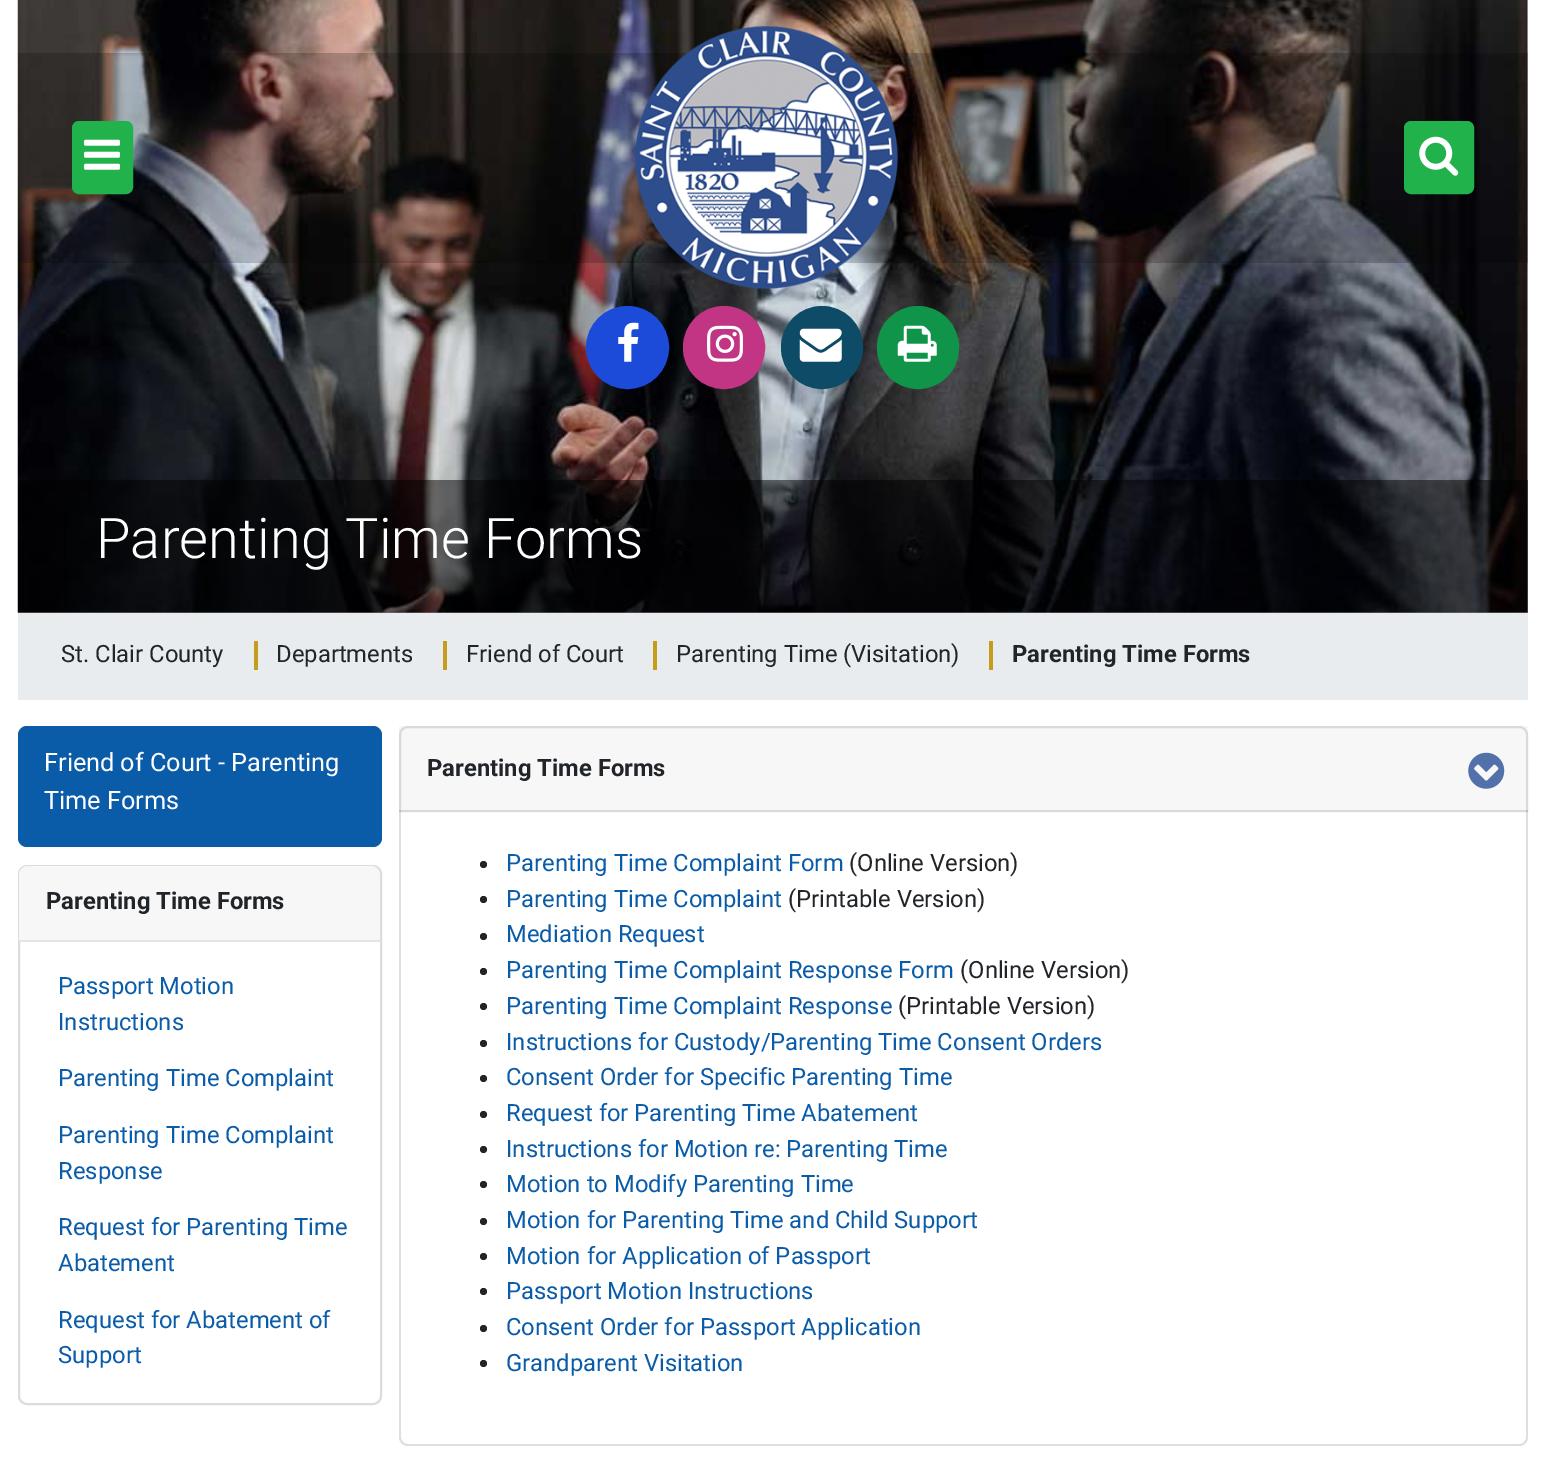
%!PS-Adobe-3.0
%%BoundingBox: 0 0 1545 1469
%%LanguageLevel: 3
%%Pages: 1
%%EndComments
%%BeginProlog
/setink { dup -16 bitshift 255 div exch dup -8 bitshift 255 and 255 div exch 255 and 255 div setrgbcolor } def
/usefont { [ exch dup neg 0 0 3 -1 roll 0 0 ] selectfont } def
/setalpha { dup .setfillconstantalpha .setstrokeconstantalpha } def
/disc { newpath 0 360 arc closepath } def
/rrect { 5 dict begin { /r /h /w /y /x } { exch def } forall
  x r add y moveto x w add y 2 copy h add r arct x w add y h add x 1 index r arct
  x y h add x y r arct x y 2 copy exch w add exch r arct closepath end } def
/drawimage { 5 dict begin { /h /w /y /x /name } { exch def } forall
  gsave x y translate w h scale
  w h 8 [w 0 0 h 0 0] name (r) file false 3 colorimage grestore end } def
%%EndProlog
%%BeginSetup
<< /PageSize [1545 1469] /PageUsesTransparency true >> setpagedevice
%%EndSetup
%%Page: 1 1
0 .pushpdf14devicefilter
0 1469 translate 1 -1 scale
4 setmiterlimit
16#FFFFFF setink
0 0 1545 1469 rectfill
(img1.raw) 17 0 1511 613 drawimage
0.2 setalpha
16#000000 setink
18 53 1510 210 rectfill
1 setalpha
16#22B24C setink
73 122 59 71 6 rrect gsave fill grestore
2 setlinewidth
stroke
(img2.raw) 84 139 36 31 drawimage
(img3.raw) 635 26 263 263 drawimage
1405 122 68 71 6 rrect gsave fill grestore
stroke
(img4.raw) 1419 136 40 40 drawimage
16#1C4BD9 setink
627.5 347.5 40.5 disc gsave fill grestore
stroke
(img5.raw) 618 322 21 40 drawimage
16#C13584 setink
684 307 80 81 40 rrect gsave fill grestore
stroke
(img6.raw) 707 325 36 37 drawimage
16#0D4B66 setink
782 307 80 81 40 rrect gsave fill grestore
stroke
(img7.raw) 799 328 43 34 drawimage
16#109449 setink
878 307 80 81 40 rrect gsave fill grestore
stroke
(img8.raw) 897 325 40 37 drawimage
0.5 setalpha
16#000000 setink
18 480 1510 133 rectfill
/Roboto-Light 56 usefont
1 setalpha
16#FFFFFF setink
96 558 moveto (Parenting Time Forms) show
16#E9ECEF setink
18 613 1510 87 rectfill
/Roboto-Regular 23.8 usefont
16#212529 setink
61 662 moveto (St. Clair County) show
16#C69C1D setink
254 641 4 29 rectfill
16#212529 setink
276 662 moveto (Departments) show
16#C69C1D setink
443 641 4 29 rectfill
16#212529 setink
466 662 moveto (Friend of Court) show
16#C69C1D setink
653 641 4 29 rectfill
16#212529 setink
676 662 moveto (Parenting Time \(Visitation\)) show
16#C69C1D setink
989 641 4 29 rectfill
/Roboto-Bold 23.8 usefont
16#212529 setink
1012 662 moveto (Parenting Time Forms) show
16#0B5CA8 setink
18 726 364 121 9 rrect fill
/Roboto-Regular 25.25 usefont
16#FFFFFF setink
44 771 moveto (Friend of Court - Parenting) show
44 809 moveto (Time Forms) show
16#DCDCDC setink
19 866 362 538 8 rrect stroke
16#F7F7F7 setink
28 866 moveto 371 866 lineto 376 866 380 870 380 875 curveto 380 942 lineto 19 942 lineto 19 875 lineto 19 870 23 866 28 866 curveto closepath fill
16#E4E4E4 setink
19 940 361 2 rectfill
/Roboto-Bold 23.8 usefont
16#212529 setink
46 909 moveto (Parenting Time Forms) show
/Roboto-Regular 23.8 usefont
16#0B5CA8 setink
[
    [(Passport Motion) 58 994]
    [(Instructions) 58 1030]
    [(Parenting Time Complaint) 58 1086]
    [(Parenting Time Complaint) 58 1143]
    [(Response) 58 1179]
    [(Request for Parenting Time) 58 1235]
    [(Abatement) 58 1271]
    [(Request for Abatement of) 58 1328]
    [(Support) 58 1363]
] { aload pop moveto show } forall
16#DFDFDF setink
399 810 moveto 1528 810 lineto 1528 1437 lineto 1528 1442 1524 1446 1519 1446 curveto 408 1446 lineto 403 1446 399 1442 399 1437 curveto closepath 401 810 moveto 1526 810 lineto 1526 1437 lineto 1526 1441 1523 1444 1519 1444 curveto 408 1444 lineto 404 1444 401 1441 401 1437 curveto closepath eofill
0.03 setalpha
16#000000 setink
399 726 1129 86 rectfill
0.12 setalpha
408 727 moveto 1519 727 lineto 1523.5 727 1527 730.5 1527 735 curveto 1527 811 lineto 400 811 lineto 400 735 lineto 400 730.5 403.5 727 408 727 curveto closepath stroke
/Roboto-Bold 23.8 usefont
1 setalpha
16#212529 setink
427 776 moveto (Parenting Time Forms) show
(img9.raw) 1468 752 37 37 drawimage
483.5 864.5 3.5 disc fill
/Roboto-Regular 23.8 usefont
16#0B5CA8 setink
506 871 moveto (Parenting Time Complaint Form) show
16#212529 setink
849 871 moveto (\(Online Version\)) show
483.5 899.5 3.5 disc fill
16#0B5CA8 setink
506 907 moveto (Parenting Time Complaint) show
16#212529 setink
788 907 moveto (\(Printable Version\)) show
483.5 936.5 3.5 disc fill
16#0B5CA8 setink
506 942 moveto (Mediation Request) show
16#212529 setink
483.5 971.5 3.5 disc fill
16#0B5CA8 setink
506 978 moveto (Parenting Time Complaint Response Form) show
16#212529 setink
960 978 moveto (\(Online Version\)) show
483.5 1006.5 3.5 disc fill
16#0B5CA8 setink
506 1014 moveto (Parenting Time Complaint Response) show
16#212529 setink
898 1014 moveto (\(Printable Version\)) show
483.5 1043.5 3.5 disc fill
16#0B5CA8 setink
506 1050 moveto (Instructions for Custody/Parenting Time Consent Orders) show
16#212529 setink
483.5 1078.5 3.5 disc fill
16#0B5CA8 setink
506 1085 moveto (Consent Order for Specific Parenting Time) show
16#212529 setink
483.5 1114.5 3.5 disc fill
16#0B5CA8 setink
506 1121 moveto (Request for Parenting Time Abatement) show
16#212529 setink
483.5 1149.5 3.5 disc fill
16#0B5CA8 setink
506 1157 moveto (Instructions for Motion re: Parenting Time) show
16#212529 setink
483.5 1184.5 3.5 disc fill
16#0B5CA8 setink
506 1192 moveto (Motion to Modify Parenting Time) show
16#212529 setink
483.5 1221.5 3.5 disc fill
16#0B5CA8 setink
506 1228 moveto (Motion for Parenting Time and Child Support) show
16#212529 setink
483.5 1256.5 3.5 disc fill
16#0B5CA8 setink
506 1264 moveto (Motion for Application of Passport) show
16#212529 setink
483.5 1291.5 3.5 disc fill
16#0B5CA8 setink
506 1299 moveto (Passport Motion Instructions) show
16#212529 setink
483.5 1328.5 3.5 disc fill
16#0B5CA8 setink
506 1335 moveto (Consent Order for Passport Application) show
16#212529 setink
483.5 1363.5 3.5 disc fill
16#0B5CA8 setink
506 1371 moveto (Grandparent Visitation) show
.poppdf14devicefilter showpage
%%EOF
